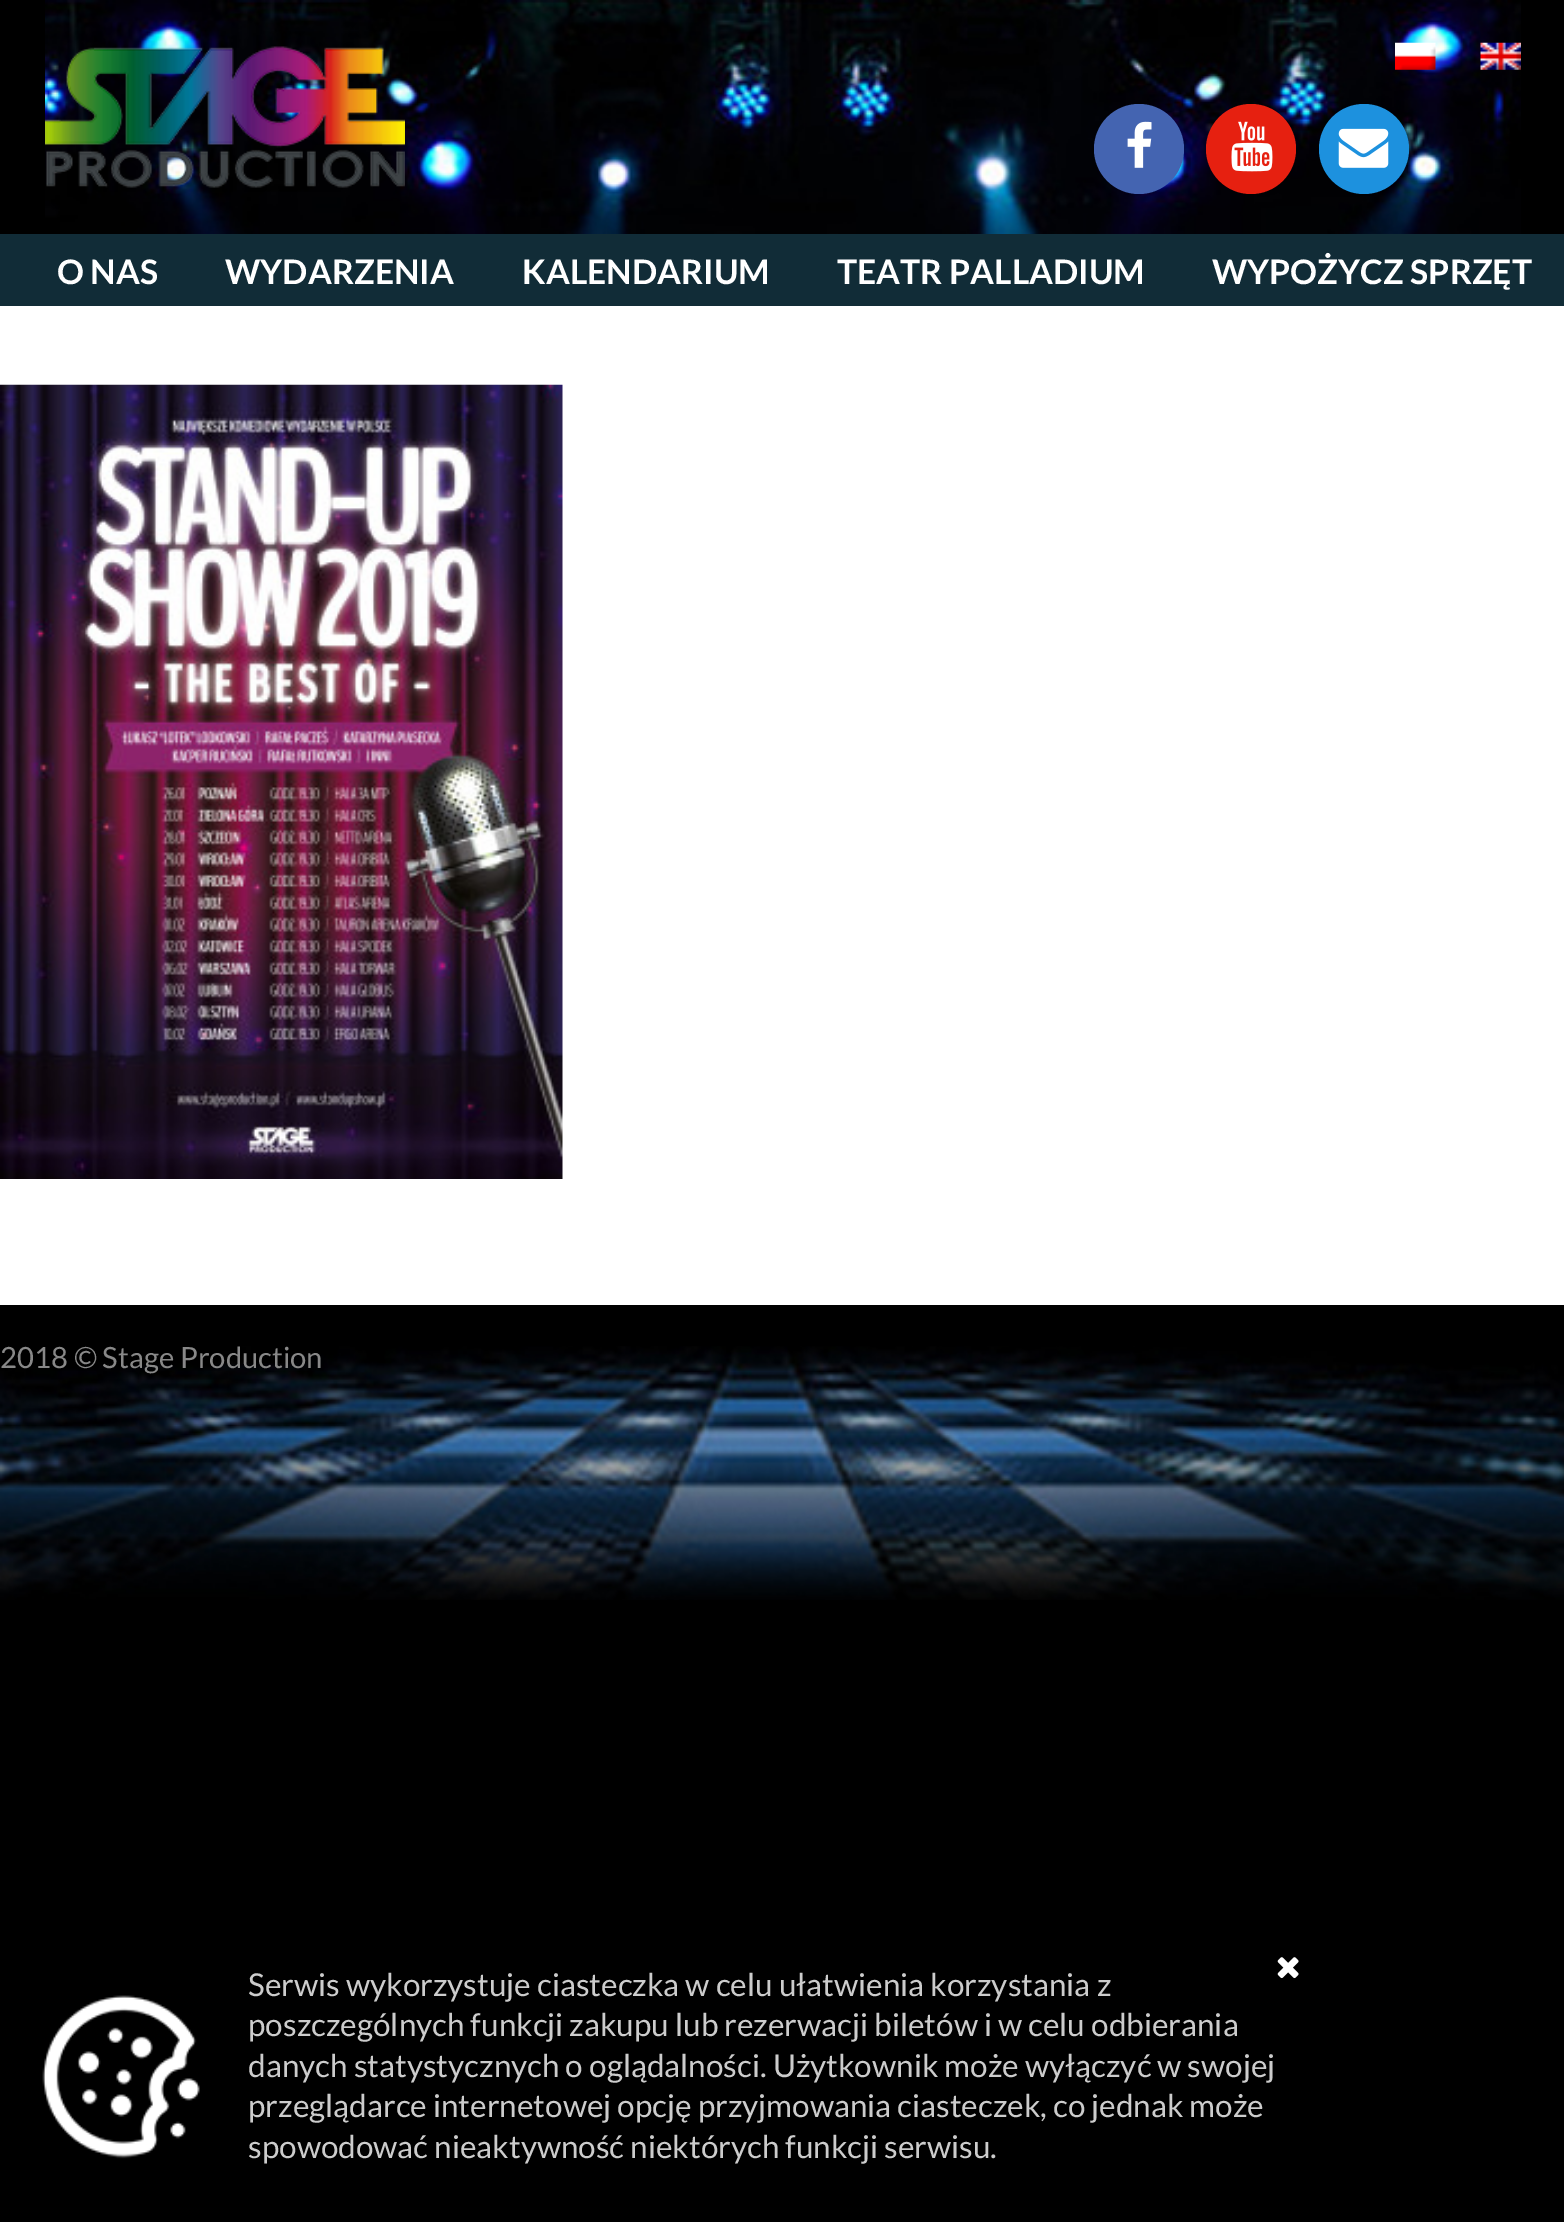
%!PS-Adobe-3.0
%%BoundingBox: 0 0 1564 2222
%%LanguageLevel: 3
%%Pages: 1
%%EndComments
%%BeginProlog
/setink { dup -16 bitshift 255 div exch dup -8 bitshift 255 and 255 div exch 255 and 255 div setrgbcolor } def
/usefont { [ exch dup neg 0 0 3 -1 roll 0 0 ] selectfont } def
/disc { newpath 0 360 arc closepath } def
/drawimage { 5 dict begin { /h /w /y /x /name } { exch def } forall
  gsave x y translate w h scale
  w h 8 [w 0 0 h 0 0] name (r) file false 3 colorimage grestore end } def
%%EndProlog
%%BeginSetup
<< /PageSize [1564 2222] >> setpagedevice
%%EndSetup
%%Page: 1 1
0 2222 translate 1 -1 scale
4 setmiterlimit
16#000000 setink
0 0 1564 2222 rectfill
(img1.raw) 45 0 1476 234 drawimage
(img2.raw) 45 46 360 142 drawimage
(img3.raw) 1395 42 41 28 drawimage
(img4.raw) 1480 42 41 28 drawimage
16#4464B1 setink
1139 149 45 disc fill
(img5.raw) 1127 121 25 47 drawimage
16#E62010 setink
1251 149 45 disc fill
(img6.raw) 1231 121 42 51 drawimage
16#1D91DE setink
1364 149 45 disc fill
(img7.raw) 1338 128 51 40 drawimage
16#112C37 setink
0 234 1564 72 rectfill
/Lato-Bold 33.75 usefont
16#FFFFFF setink
[
    [(O NAS) 57 284]
    [(WYDARZENIA) 225 284]
    [(KALENDARIUM) 522 284]
    [(TEATR PALLADIUM) 837 284]
    [(WYPOŻYCZ SPRZĘT) 1212 284]
] { aload pop moveto show } forall
0 306 1564 999 rectfill
(img8.raw) 0 384 563 795 drawimage
(img9.raw) 0 1346 1564 254 drawimage
/Lato-Regular 29.25 usefont
16#888888 setink
0 1368 moveto (2018 © Stage Production) show
(img10.raw) 1277 1957 22 22 drawimage
(img11.raw) 42 1995 158 164 drawimage
/Lato-Regular 31.5 usefont
16#CCCCCC setink
[
    [(Serwis wykorzystuje ciasteczka w celu ułatwienia korzystania z) 248 1996]
    [(poszczególnych funkcji zakupu lub rezerwacji biletów i w celu odbierania) 248 2036]
    [(danych statystycznych o oglądalności. Użytkownik może wyłączyć w swojej) 248 2077]
    [(przeglądarce internetowej opcję przyjmowania ciasteczek, co jednak może) 248 2117]
    [(spowodować nieaktywność niektórych funkcji serwisu.) 248 2158]
] { aload pop moveto show } forall
showpage
%%EOF
